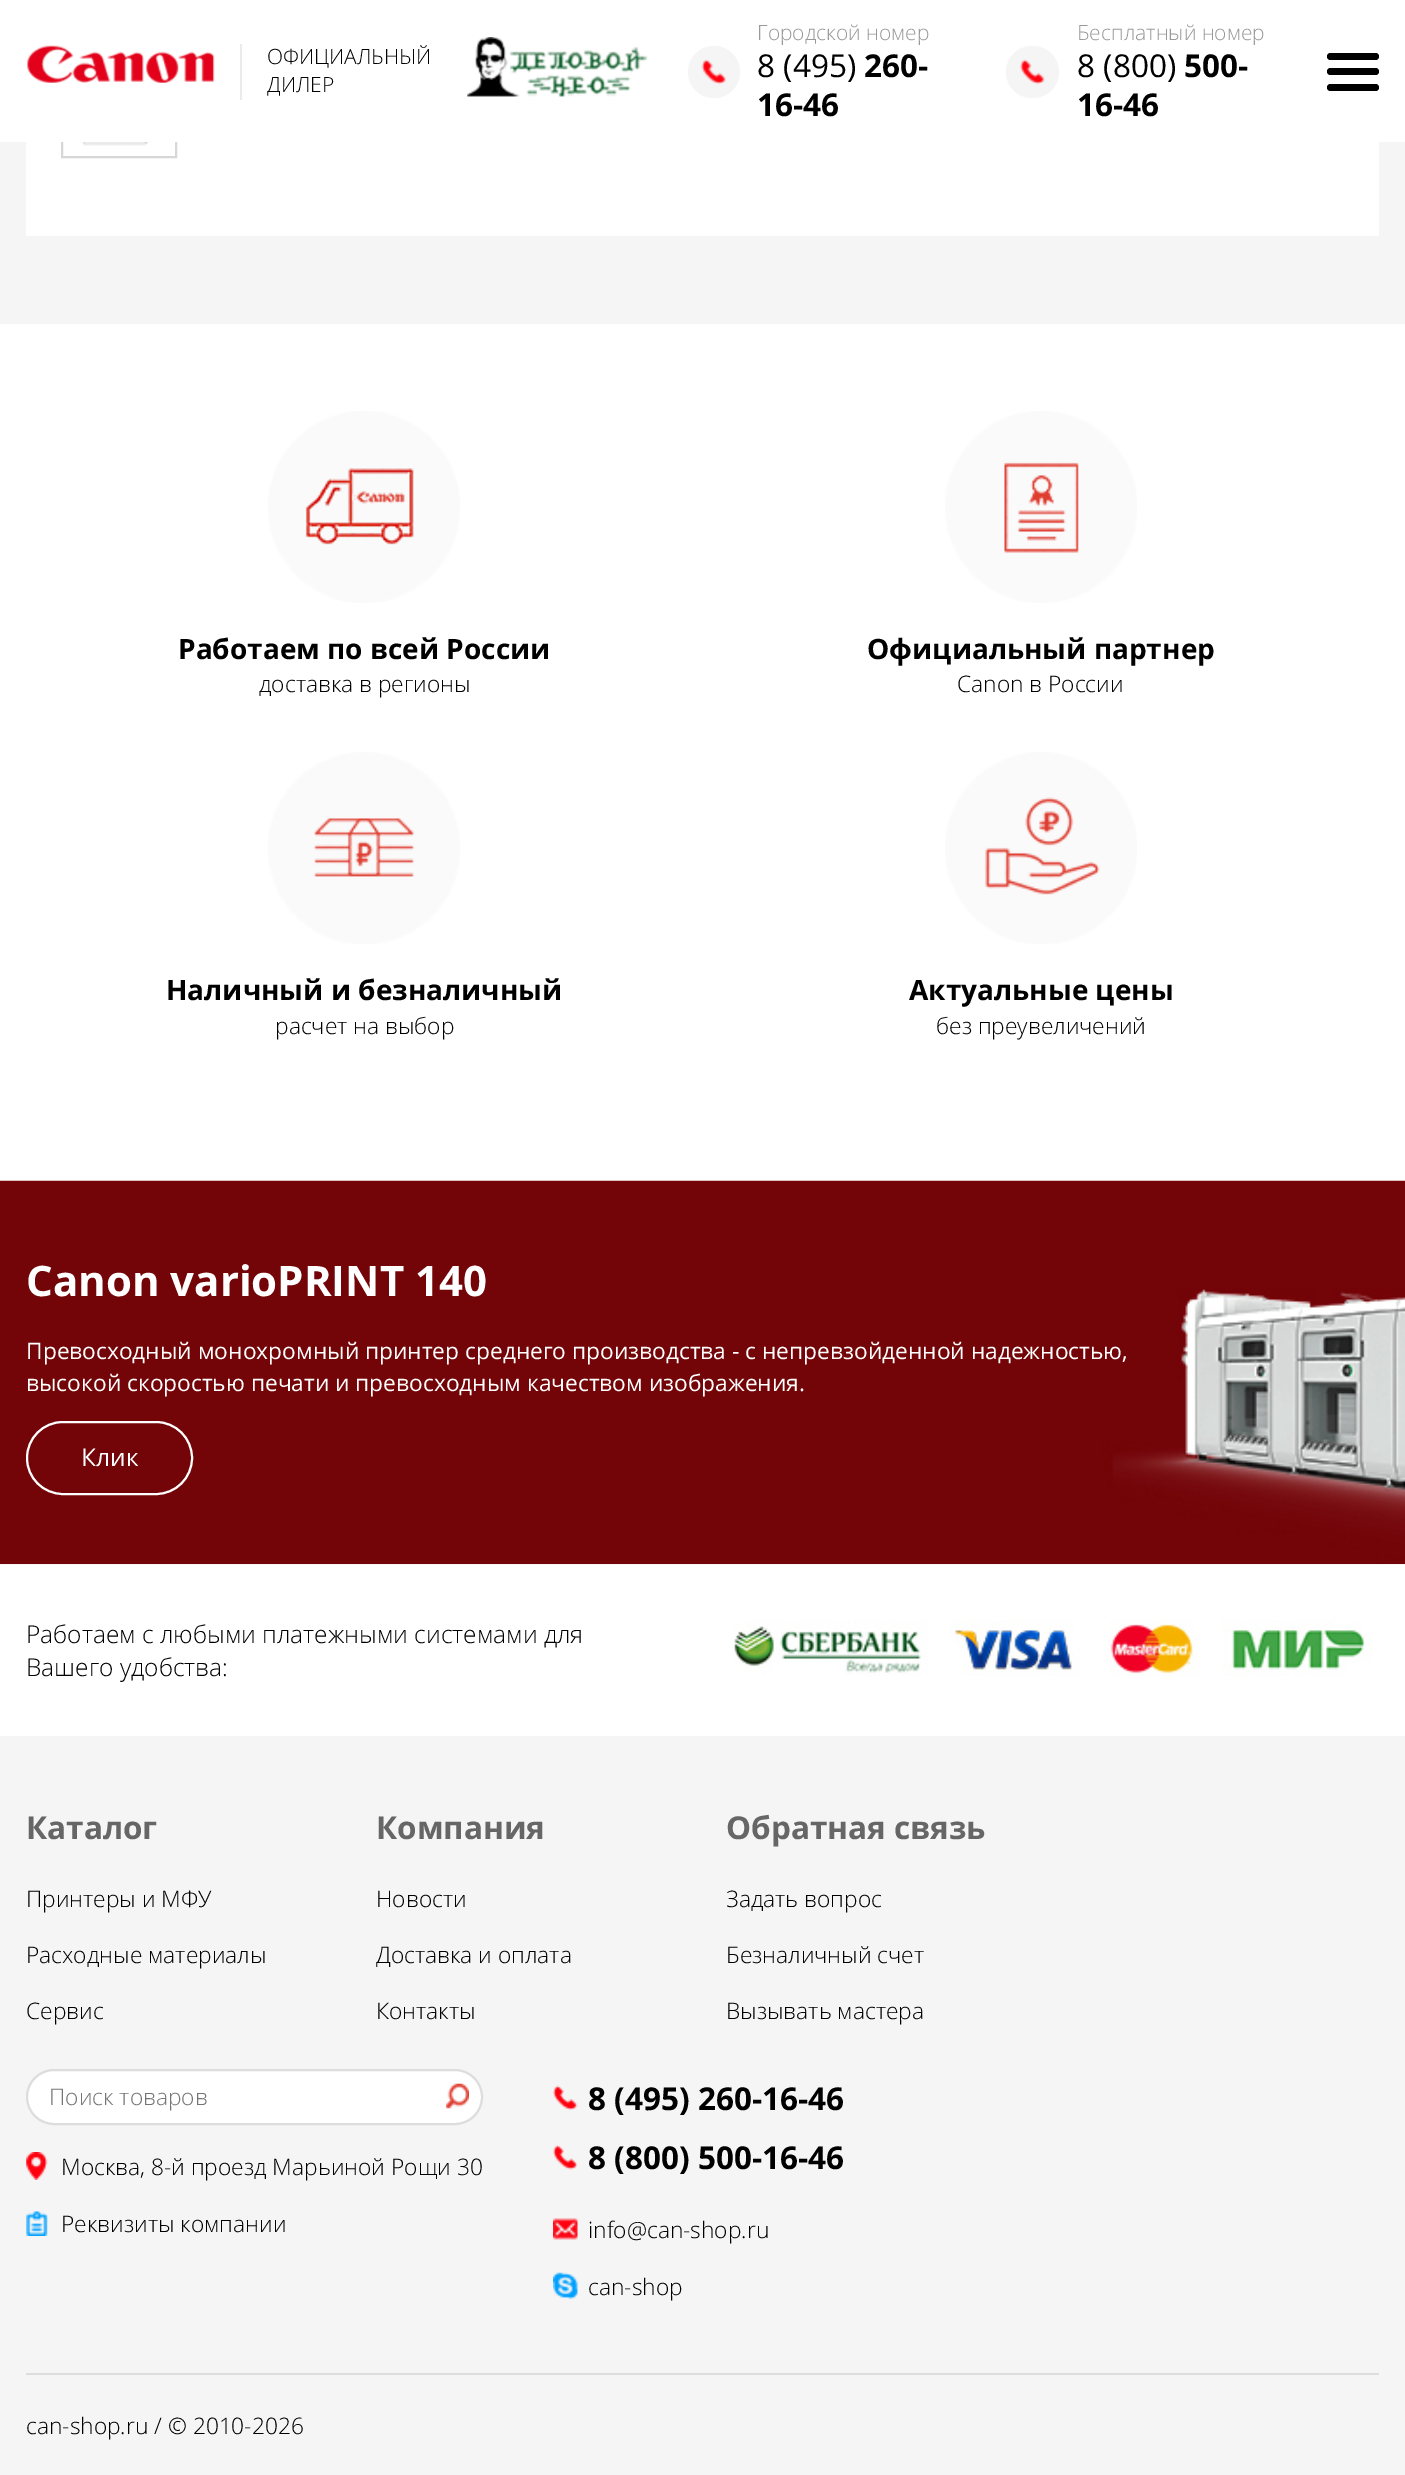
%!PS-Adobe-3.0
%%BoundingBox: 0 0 1405 2475
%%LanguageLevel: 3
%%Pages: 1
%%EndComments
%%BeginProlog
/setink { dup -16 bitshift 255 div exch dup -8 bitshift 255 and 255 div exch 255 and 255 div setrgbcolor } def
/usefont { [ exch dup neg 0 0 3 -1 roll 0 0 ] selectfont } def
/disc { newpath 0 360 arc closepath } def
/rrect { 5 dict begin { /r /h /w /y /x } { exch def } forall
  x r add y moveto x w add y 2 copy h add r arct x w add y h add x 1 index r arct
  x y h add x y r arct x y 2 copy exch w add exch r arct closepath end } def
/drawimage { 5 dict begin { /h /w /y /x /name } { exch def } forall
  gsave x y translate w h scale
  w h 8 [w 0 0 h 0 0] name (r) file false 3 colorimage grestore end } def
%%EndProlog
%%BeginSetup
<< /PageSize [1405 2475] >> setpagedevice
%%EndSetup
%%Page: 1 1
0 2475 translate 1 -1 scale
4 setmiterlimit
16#F5F5F5 setink
0 0 1405 2475 rectfill
16#FFFFFF setink
26 142 1353 94 rectfill
16#D7D7D7 setink
2 setlinewidth
62 68 114 89 rectstroke
16#FFFFFF setink
0 0 1405 142 rectfill
(img1.raw) 27 45 188 38 drawimage
16#EBEBEB setink
240 44 2 56 rectfill
/OpenSans-Light 21 usefont
16#000000 setink
267 64 moveto (ОФИЦИАЛЬНЫЙ) show
267 92 moveto (ДИЛЕР) show
(img2.raw) 467 37 181 60 drawimage
16#999999 setink
757 40 moveto (Городской номер) show
16#F5F5F5 setink
714 72 26 disc fill
(img3.raw) 701 59 25 26 drawimage
/OpenSans-Regular 31.5 usefont
16#000000 setink
757 77 moveto (8 \(495\)) show
/OpenSans-Bold 31.5 usefont
864 77 moveto (260-) show
757 116 moveto (16-46) show
/OpenSans-Light 21 usefont
16#999999 setink
1077 40 moveto (Бесплатный номер) show
16#F5F5F5 setink
1006 46 53 52 26 rrect fill
(img4.raw) 1020 59 25 26 drawimage
/OpenSans-Regular 31.5 usefont
16#000000 setink
1077 77 moveto (8 \(800\)) show
/OpenSans-Bold 31.5 usefont
1184 77 moveto (500-) show
1077 116 moveto (16-46) show
1327 53 52 7 3.5 rrect fill
1327 68 52 7 3.5 rrect fill
1327 84 52 7 3.5 rrect fill
(img5.raw) 82 142 74 4 drawimage
16#FFFFFF setink
0 324 1405 857 rectfill
(img6.raw) 268 411 192 192 drawimage
/OpenSans-Bold 28 usefont
16#000000 setink
178 659 moveto (Работаем по всей России) show
/OpenSans-Light 22.75 usefont
259 692 moveto (доставка в регионы) show
(img7.raw) 945 411 192 192 drawimage
/OpenSans-Bold 28 usefont
867 659 moveto (Официальный партнер) show
/OpenSans-Light 22.75 usefont
957 692 moveto (Canon в России) show
(img8.raw) 268 752 192 192 drawimage
/OpenSans-Bold 28 usefont
166 1000 moveto (Наличный и безналичный) show
/OpenSans-Light 22.75 usefont
275 1034 moveto (расчет на выбор) show
(img9.raw) 945 752 192 192 drawimage
/OpenSans-Bold 28 usefont
909 1000 moveto (Актуальные цены) show
/OpenSans-Light 22.75 usefont
936 1034 moveto (без преувеличений) show
(img10.raw) 0 1180 1405 384 drawimage
/OpenSans-Bold 42 usefont
16#FFFFFF setink
26 1296 moveto (Canon varioPRINT 140) show
/OpenSans-Regular 22.75 usefont
26 1359 moveto (Превосходный монохромный принтер среднего производства - с непревзойденной надежностью,) show
26 1391 moveto (высокой скоростью печати и превосходным качеством изображения.) show
27 1422 165 72 36 rrect stroke
/OpenSans-Regular 24.5 usefont
81 1466 moveto (Клик) show
0 1565 1405 171 rectfill
/OpenSans-Light 24.5 usefont
16#000000 setink
26 1643 moveto (Работаем с любыми платежными системами для) show
26 1676 moveto (Вашего удобства:) show
(img11.raw) 734 1620 638 56 drawimage
/OpenSans-Bold 31.5 usefont
16#666666 setink
26 1839 moveto (Каталог) show
/OpenSans-Light 22.75 usefont
16#000000 setink
[
    [(Принтеры и МФУ) 26 1907]
    [(Расходные материалы) 26 1963]
    [(Сервис) 26 2019]
] { aload pop moveto show } forall
/OpenSans-Bold 31.5 usefont
16#666666 setink
376 1839 moveto (Компания) show
/OpenSans-Light 22.75 usefont
16#000000 setink
[
    [(Новости) 376 1907]
    [(Доставка и оплата) 376 1963]
    [(Контакты) 376 2019]
] { aload pop moveto show } forall
/OpenSans-Bold 31.5 usefont
16#666666 setink
726 1839 moveto (Обратная связь) show
/OpenSans-Light 22.75 usefont
16#000000 setink
[
    [(Задать вопрос) 726 1907]
    [(Безналичный счет) 726 1963]
    [(Вызывать мастера) 726 2019]
] { aload pop moveto show } forall
16#FFFFFF setink
27 2070 455 54 27 rrect gsave fill grestore
16#DDDDDD setink
stroke
16#757575 setink
49 2105 moveto (Поиск товаров) show
(img12.raw) 446 2083 23 26 drawimage
(img13.raw) 26 2152 22 28 drawimage
16#000000 setink
61 2175 moveto (Москва, 8-й проезд Марьиной Рощи 30) show
(img14.raw) 26 2211 22 25 drawimage
61 2232 moveto (Реквизиты компании) show
(img15.raw) 553 2085 25 25 drawimage
/OpenSans-Bold 31.5 usefont
588 2110 moveto (8 \(495\) 260-16-46) show
(img16.raw) 553 2145 25 25 drawimage
588 2169 moveto (8 \(800\) 500-16-46) show
(img17.raw) 553 2218 25 22 drawimage
/OpenSans-Light 22.75 usefont
588 2238 moveto (info@can-shop.ru) show
(img18.raw) 553 2272 25 27 drawimage
588 2295 moveto (can-shop) show
16#DDDDDD setink
26 2373 1353 2 rectfill
16#000000 setink
26 2434 moveto (can-shop.ru / © 2010-2026) show
showpage
%%EOF
